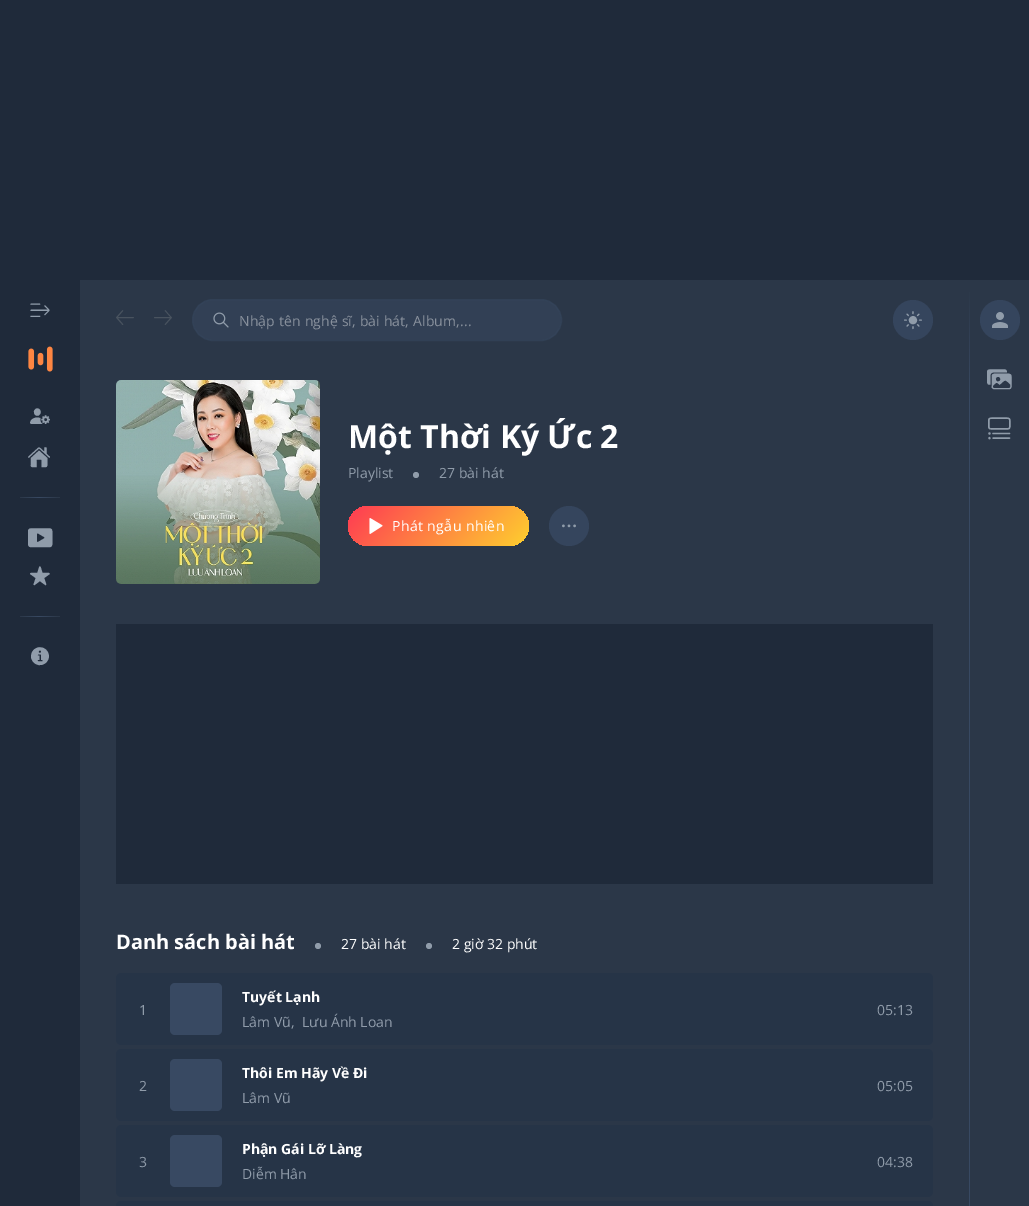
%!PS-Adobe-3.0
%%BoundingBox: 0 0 1029 1206
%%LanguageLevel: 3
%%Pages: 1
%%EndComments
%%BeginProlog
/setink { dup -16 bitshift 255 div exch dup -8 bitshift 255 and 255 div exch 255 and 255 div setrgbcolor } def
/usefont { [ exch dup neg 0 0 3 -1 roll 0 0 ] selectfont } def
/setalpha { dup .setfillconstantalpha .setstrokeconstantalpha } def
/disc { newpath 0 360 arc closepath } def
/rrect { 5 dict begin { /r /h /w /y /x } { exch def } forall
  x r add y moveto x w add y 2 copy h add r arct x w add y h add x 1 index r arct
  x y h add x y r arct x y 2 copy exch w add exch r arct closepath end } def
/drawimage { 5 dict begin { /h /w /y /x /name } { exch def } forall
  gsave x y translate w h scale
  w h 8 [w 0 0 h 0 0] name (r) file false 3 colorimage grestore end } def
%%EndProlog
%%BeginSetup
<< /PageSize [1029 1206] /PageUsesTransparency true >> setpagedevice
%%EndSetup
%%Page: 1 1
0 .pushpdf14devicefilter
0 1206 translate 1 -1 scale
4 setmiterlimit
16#2B3748 setink
0 0 1029 1206 rectfill
16#1F2A3A setink
0 0 1029 280 rectfill
0 280 80 926 rectfill
/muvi-Regular 20 usefont
16#909CAA setink
gsave 50 301 translate 180 rotate 0 0 moveto (3) show grestore
(img1.raw) 28 346 25 26 drawimage
30 427 moveto (6) show
28 466 moveto ($) show
gsave 20 497 moveto 60 497 lineto 60 498 lineto 20 498 lineto closepath clip newpath
<< /ShadingType 2 /ColorSpace /DeviceRGB /Coords [20 498 60 498] /Extend [true true] /Function << /FunctionType 3 /Domain [0 1] /Functions [<< /FunctionType 2 /Domain [0 1] /C0 [0.169 0.216 0.282] /C1 [0.22 0.286 0.384] /N 1 >> << /FunctionType 2 /Domain [0 1] /C0 [0.22 0.286 0.384] /C1 [0.169 0.216 0.282] /N 1 >> << /FunctionType 2 /Domain [0 1] /C0 [0.169 0.216 0.282] /C1 [0.169 0.216 0.282] /N 1 >>] /Bounds [0.47 0.98] /Encode [0 1 0 1 0 1] >> >> shfill grestore
/muvi-Regular 19 usefont
28 546 moveto (+) show
/muvi-Regular 20 usefont
30 585 moveto (5) show
gsave 20 616 moveto 60 616 lineto 60 617 lineto 20 617 lineto closepath clip newpath
<< /ShadingType 2 /ColorSpace /DeviceRGB /Coords [20 617 60 617] /Extend [true true] /Function << /FunctionType 3 /Domain [0 1] /Functions [<< /FunctionType 2 /Domain [0 1] /C0 [0.169 0.216 0.282] /C1 [0.22 0.286 0.384] /N 1 >> << /FunctionType 2 /Domain [0 1] /C0 [0.22 0.286 0.384] /C1 [0.169 0.216 0.282] /N 1 >> << /FunctionType 2 /Domain [0 1] /C0 [0.169 0.216 0.282] /C1 [0.169 0.216 0.282] /N 1 >>] /Bounds [0.47 0.98] /Encode [0 1 0 1 0 1] >> >> shfill grestore
/muvi-Regular 18 usefont
31 664 moveto (8) show
16#49535F setink
116 327 moveto (?) show
154 327 moveto (@) show
16#314055 setink
192.5 299.5 369 41 20.5 rrect stroke
0.5 setalpha
16#384962 setink
193 300 368 40 20 rrect fill
1 setalpha
(img2.raw) 213 312 16 16 drawimage
/OpenSans-Regular 14 usefont
16#88909C setink
239 326 moveto 0.15 0 (Nhập tên nghệ sĩ, bài hát, Album,...) ashow
16#35455D setink
913 320 20 disc fill
/muvi-Regular 18 usefont
16#909CAA setink
904 328 moveto (2) show
(img3.raw) 116 380 204 204 drawimage
/OpenSans-Bold 32 usefont
16#FFFFFF setink
348 448 moveto (Một Thời Ký Ức 2) show
/OpenSans-Regular 14 usefont
16#909CAA setink
348 478 moveto (Playlist) show
416 475 3 disc fill
439 478 moveto (27 bài hát) show
gsave 348 506 181 40 20 rrect clip newpath
<< /ShadingType 2 /ColorSpace /DeviceRGB /Coords [379 472 498 580] /Extend [true true] /Function << /FunctionType 3 /Domain [0 1] /Functions [<< /FunctionType 2 /Domain [0 1] /C0 [0.996 0.259 0.318] /C1 [0.996 0.259 0.318] /N 1 >> << /FunctionType 2 /Domain [0 1] /C0 [0.996 0.259 0.318] /C1 [0.996 0.792 0.188] /N 1 >> << /FunctionType 2 /Domain [0 1] /C0 [0.996 0.792 0.188] /C1 [0.996 0.792 0.188] /N 1 >>] /Bounds [0.05 0.96] /Encode [0 1 0 1 0 1] >> >> shfill grestore
(img4.raw) 369 518 14 16 drawimage
16#FFFFFF setink
392 531 moveto 0.4 0 (Phát ngẫu nhiên) ashow
16#35455D setink
569 526 20 disc fill
(img5.raw) 562 524 14 4 drawimage
16#1F2A3A setink
116 624 817 260 rectfill
/OpenSans-Bold 20 usefont
16#FFFFFF setink
116 949 moveto (Danh sách bài hát) show
16#909CAA setink
318 946 3 disc fill
/OpenSans-Regular 14 usefont
16#FFFFFF setink
341 949 moveto (27 bài hát) show
16#909CAA setink
429 946 3 disc fill
16#FFFFFF setink
452 949 moveto (2 giờ 32 phút) show
16#263447 setink
116 973 817 72 5 rrect fill
16#909CAA setink
139 1015 moveto (1) show
16#384962 setink
170 983 52 52 5 rrect fill
/OpenSans-Bold 14 usefont
16#FFFFFF setink
242 1002 moveto (Tuyết Lạnh) show
/OpenSans-Regular 14 usefont
16#909CAA setink
[
    [(Lâm Vũ,) 242 1027]
    [(Lưu Ánh Loan) 302 1027]
    [(05:13) 877 1015]
] { aload pop moveto show } forall
16#263447 setink
116 1049 817 72 5 rrect fill
16#909CAA setink
139 1091 moveto (2) show
16#384962 setink
170 1059 52 52 5 rrect fill
/OpenSans-Bold 14 usefont
16#FFFFFF setink
242 1078 moveto (Thôi Em Hãy Về Đi) show
/OpenSans-Regular 14 usefont
16#909CAA setink
242 1103 moveto (Lâm Vũ) show
877 1091 moveto (05:05) show
16#263447 setink
116 1125 817 72 5 rrect fill
16#909CAA setink
139 1167 moveto (3) show
16#384962 setink
170 1135 52 52 5 rrect fill
/OpenSans-Bold 14 usefont
16#FFFFFF setink
242 1154 moveto (Phận Gái Lỡ Làng) show
/OpenSans-Regular 14 usefont
16#909CAA setink
242 1179 moveto (Diễm Hân) show
877 1167 moveto (04:38) show
16#263447 setink
121 1201 moveto 928 1201 lineto 931 1201 933 1203 933 1206 curveto 116 1206 lineto 116 1203 118 1201 121 1201 curveto closepath fill
gsave 969 292 moveto 970 292 lineto 970 1206 lineto 969 1206 lineto closepath clip newpath
<< /ShadingType 2 /ColorSpace /DeviceRGB /Coords [969 280 970 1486] /Extend [true true] /Function << /FunctionType 3 /Domain [0 1] /Functions [<< /FunctionType 2 /Domain [0 1] /C0 [0.169 0.216 0.282] /C1 [0.22 0.286 0.384] /N 1 >> << /FunctionType 2 /Domain [0 1] /C0 [0.22 0.286 0.384] /C1 [0.22 0.286 0.384] /N 1 >>] /Bounds [0.1] /Encode [0 1 0 1] >> >> shfill grestore
16#35455D setink
1000 320 20 disc fill
(img6.raw) 992 312 16 16 drawimage
/muvi-Regular 20 usefont
16#909CAA setink
987 388 moveto (#) show
/muvi-Regular 22 usefont
988 438 moveto (%) show
.poppdf14devicefilter showpage
%%EOF
